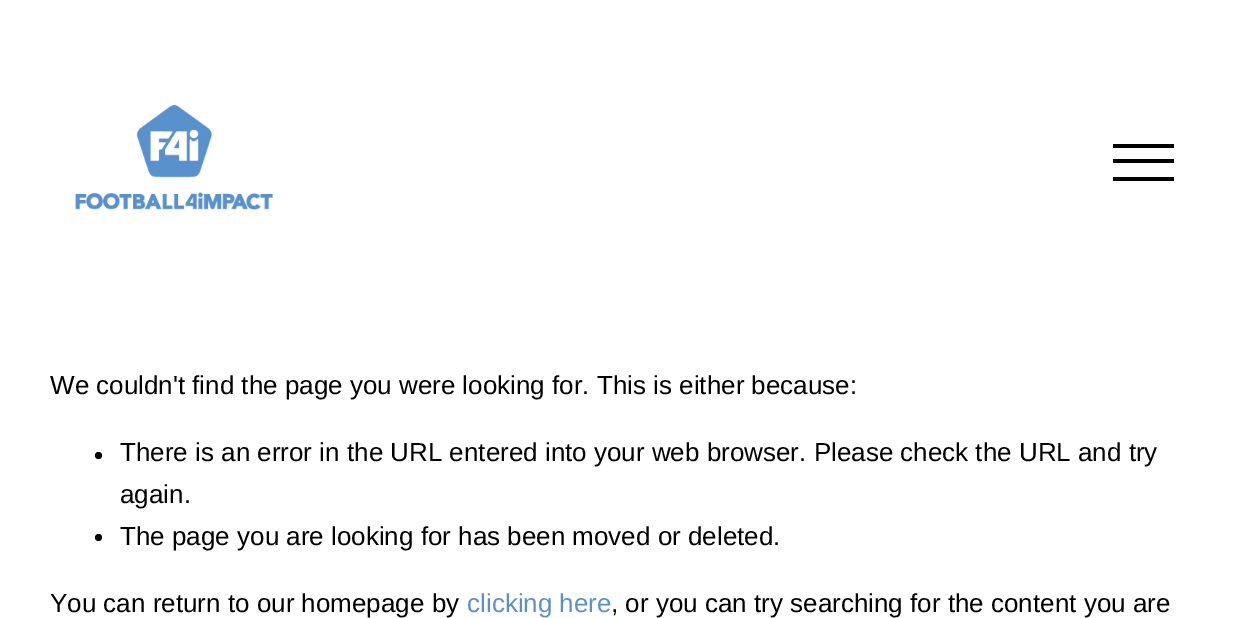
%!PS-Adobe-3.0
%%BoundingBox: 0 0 1260 618
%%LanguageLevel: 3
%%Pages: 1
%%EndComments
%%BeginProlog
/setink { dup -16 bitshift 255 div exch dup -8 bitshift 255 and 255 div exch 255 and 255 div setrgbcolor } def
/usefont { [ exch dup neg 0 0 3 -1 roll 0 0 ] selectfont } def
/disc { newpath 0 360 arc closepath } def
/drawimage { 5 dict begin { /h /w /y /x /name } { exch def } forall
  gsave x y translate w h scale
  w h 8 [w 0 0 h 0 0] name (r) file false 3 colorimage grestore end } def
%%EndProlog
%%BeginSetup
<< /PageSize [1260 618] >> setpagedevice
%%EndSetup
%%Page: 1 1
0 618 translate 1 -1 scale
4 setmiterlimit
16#FFFFFF setink
0 0 1260 618 rectfill
(img1.raw) 75 105 199 105 drawimage
[
    [1113 144 61 4 16#000000]
    [1113 159 61 4 16#000000]
    [1113 177 61 4 16#000000]
] { aload pop setink rectfill } forall
/LiberationSans-Regular 26 usefont
50 394 moveto (We couldn't find the page you were looking for. This is either because:) show
98.5 455.5 3.5 disc fill
120 461 moveto (There is an error in the URL entered into your web browser. Please check the URL and try) show
120 503 moveto (again.) show
98.5 537.5 3.5 disc fill
120 545 moveto (The page you are looking for has been moved or deleted.) show
50 612 moveto (You can return to our homepage by) show
16#5A91CD setink
467 612 moveto (clicking here) show
16#000000 setink
611 612 moveto (, or you can try searching for the content you are) show
showpage
%%EOF
